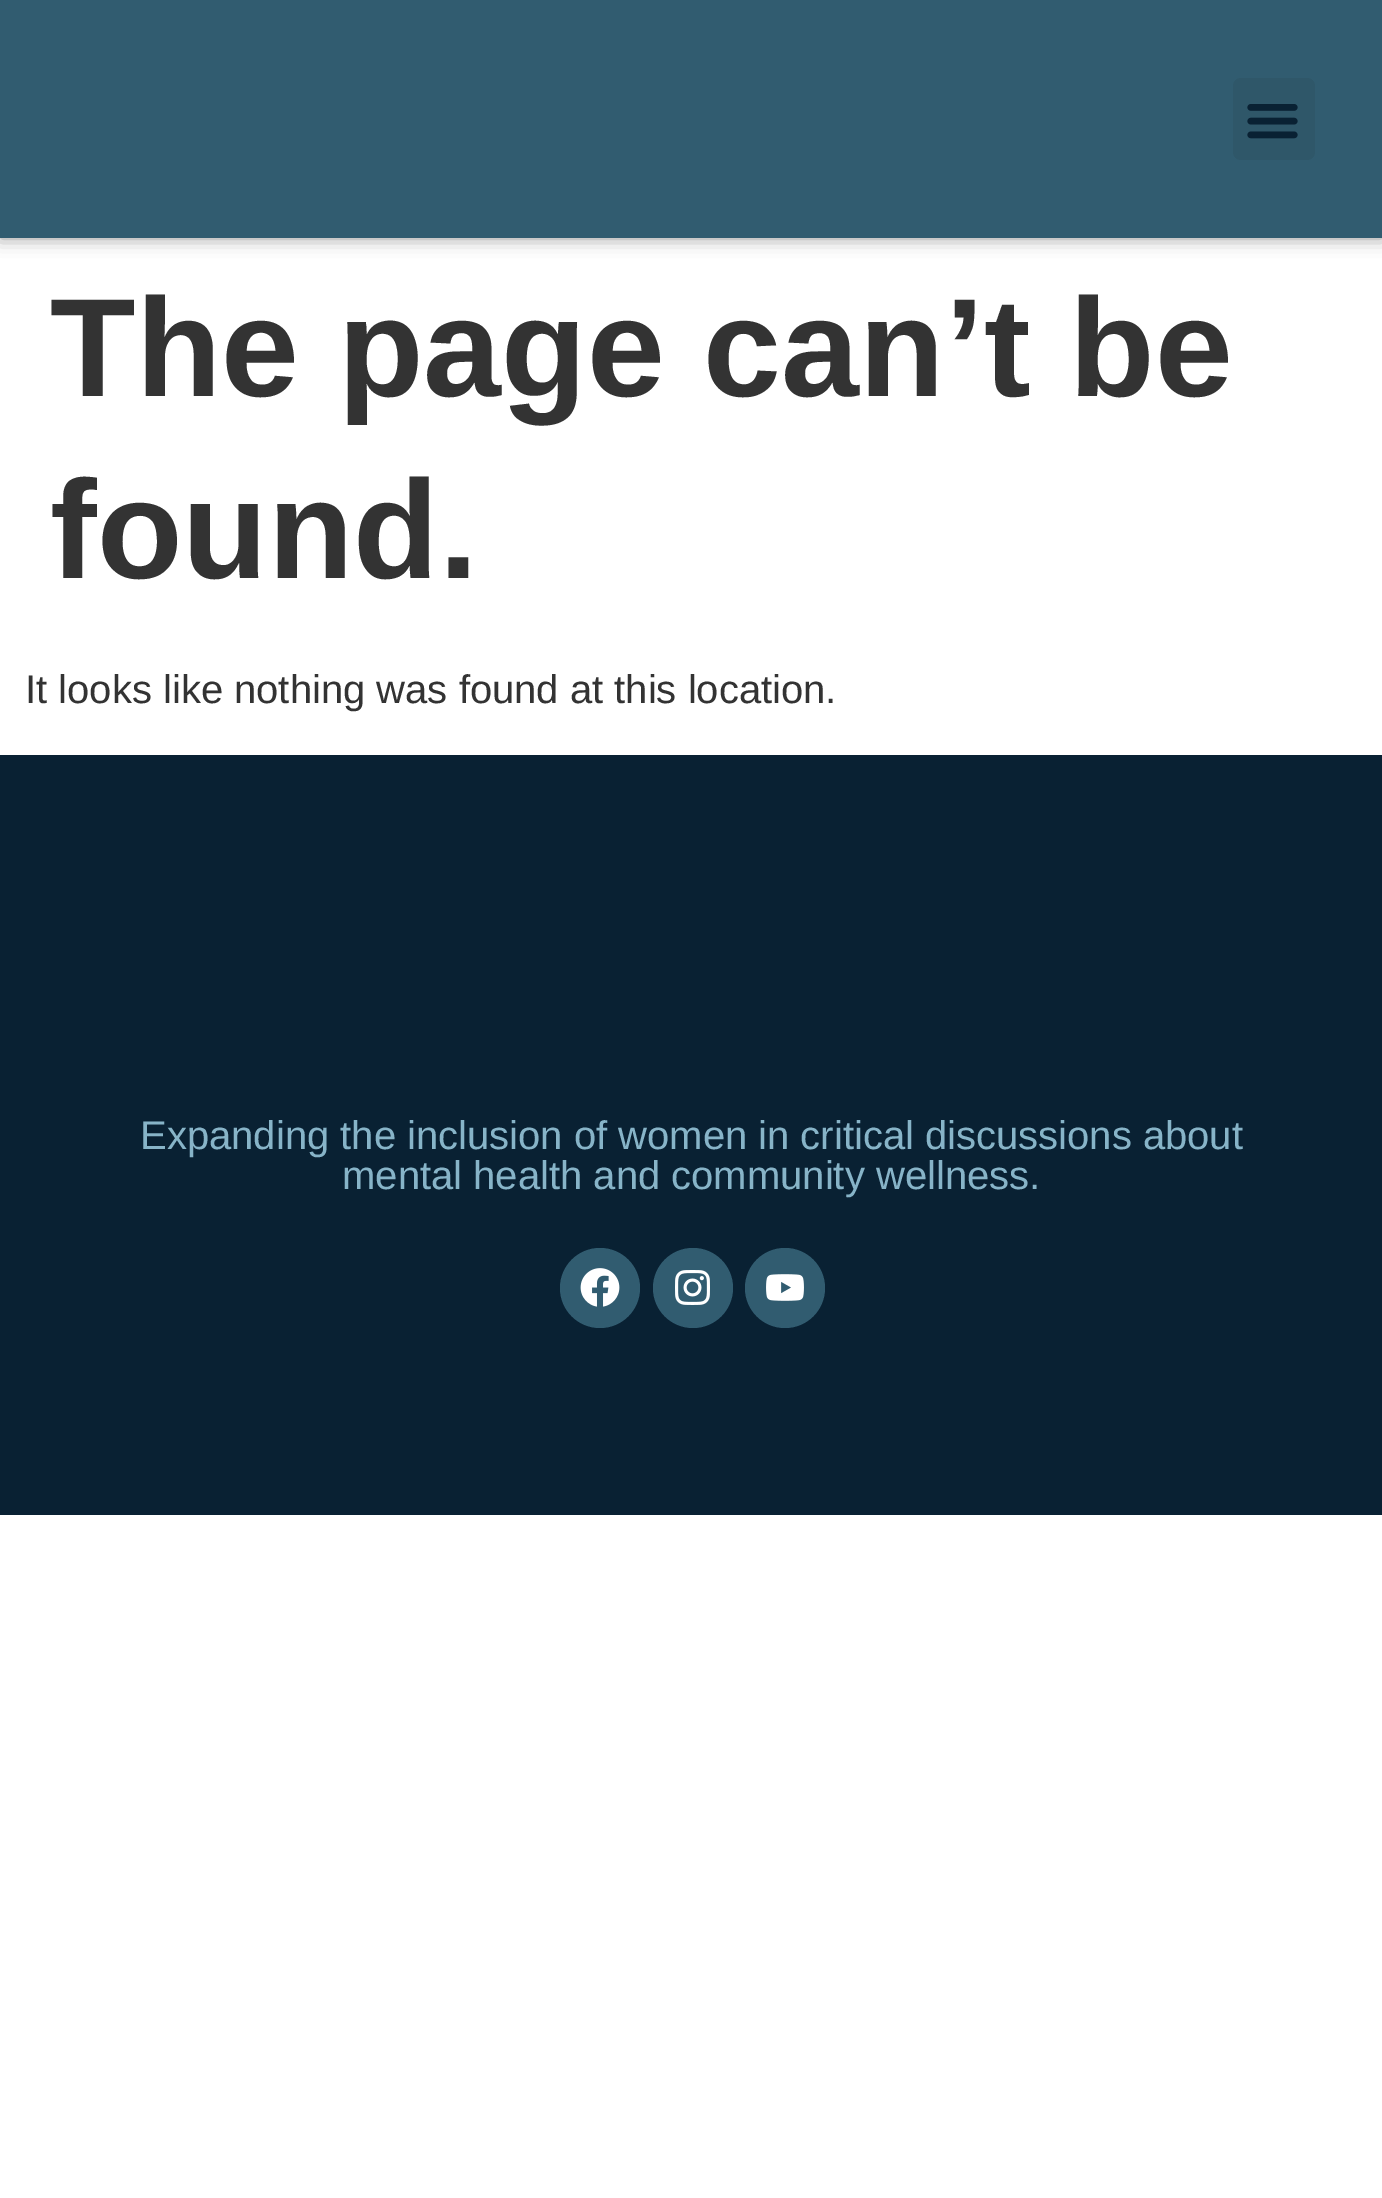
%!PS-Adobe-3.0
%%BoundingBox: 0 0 1382 2198
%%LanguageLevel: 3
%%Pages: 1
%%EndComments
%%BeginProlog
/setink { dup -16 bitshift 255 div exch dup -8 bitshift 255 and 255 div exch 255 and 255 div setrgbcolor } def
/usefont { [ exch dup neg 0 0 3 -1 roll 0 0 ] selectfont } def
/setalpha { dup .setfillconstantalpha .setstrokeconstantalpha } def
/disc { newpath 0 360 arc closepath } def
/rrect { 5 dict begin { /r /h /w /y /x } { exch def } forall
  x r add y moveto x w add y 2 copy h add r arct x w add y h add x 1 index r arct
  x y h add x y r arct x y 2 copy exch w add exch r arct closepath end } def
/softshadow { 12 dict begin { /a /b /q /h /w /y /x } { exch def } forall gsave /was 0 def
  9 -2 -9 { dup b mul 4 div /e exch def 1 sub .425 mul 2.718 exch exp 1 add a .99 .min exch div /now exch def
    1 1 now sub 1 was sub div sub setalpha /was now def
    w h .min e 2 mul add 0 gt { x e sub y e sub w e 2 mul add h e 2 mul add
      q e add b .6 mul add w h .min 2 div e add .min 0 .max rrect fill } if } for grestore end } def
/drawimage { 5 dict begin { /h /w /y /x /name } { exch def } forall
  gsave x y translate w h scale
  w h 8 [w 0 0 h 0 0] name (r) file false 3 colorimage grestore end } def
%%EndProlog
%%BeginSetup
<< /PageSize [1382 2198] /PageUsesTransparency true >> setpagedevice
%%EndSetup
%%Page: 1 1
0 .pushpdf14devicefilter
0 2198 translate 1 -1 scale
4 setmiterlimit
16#FFFFFF setink
0 0 1382 2198 rectfill
16#000000 setink
0 0 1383 238 0 9 0.42 softshadow
16#315C70 setink
0 0 1382 238 rectfill
16#2F5769 setink
1233 78 82 82 8 rrect fill
(img1.raw) 1247 104 51 35 drawimage
/LiberationSans-Bold 140 usefont
16#333333 setink
50 396 moveto (The page can’t be) show
50 578 moveto (found.) show
/LiberationSans-Regular 40 usefont
25 703 moveto (It looks like nothing was found at this location.) show
16#092133 setink
0 755 1382 760 rectfill
16#87B4C8 setink
140 1149 moveto (Expanding the inclusion of women in critical discussions about) show
342 1189 moveto (mental health and community wellness.) show
16#315C70 setink
600 1288 40 disc fill
(img2.raw) 580 1268 40 39 drawimage
693 1288 40 disc fill
(img3.raw) 675 1270 35 35 drawimage
785 1288 40 disc fill
(img4.raw) 766 1274 38 27 drawimage
.poppdf14devicefilter showpage
%%EOF
